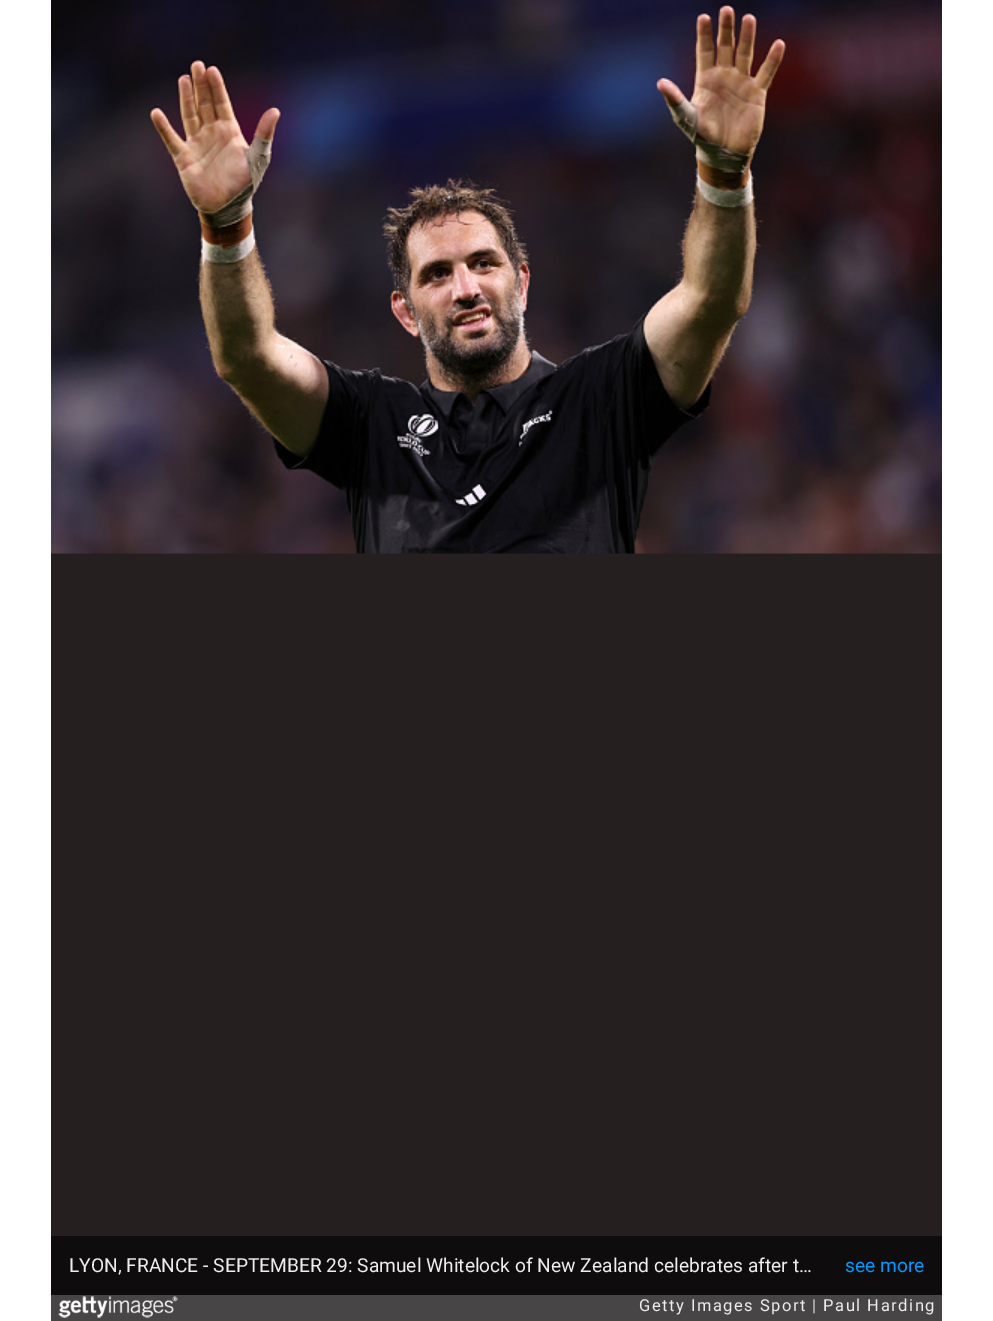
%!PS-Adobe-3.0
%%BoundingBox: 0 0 993 1321
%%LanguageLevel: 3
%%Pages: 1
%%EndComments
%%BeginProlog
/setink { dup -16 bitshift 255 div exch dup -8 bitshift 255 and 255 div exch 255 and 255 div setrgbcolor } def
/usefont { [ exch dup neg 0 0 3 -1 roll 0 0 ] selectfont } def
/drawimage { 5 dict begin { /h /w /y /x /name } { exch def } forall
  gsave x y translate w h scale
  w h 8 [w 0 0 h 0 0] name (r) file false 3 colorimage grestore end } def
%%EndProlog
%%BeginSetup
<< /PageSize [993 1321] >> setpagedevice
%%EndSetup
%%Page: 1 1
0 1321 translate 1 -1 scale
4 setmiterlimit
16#FFFFFF setink
0 0 993 1321 rectfill
16#251F20 setink
51 553 891 683 rectfill
(img1.raw) 51 0 891 554 drawimage
16#0F0C0D setink
51 1236 891 59 rectfill
/Roboto-Regular 19.2 usefont
16#EEEEEE setink
69 1272 moveto (LYON, FRANCE - SEPTEMBER 29: Samuel Whitelock of New Zealand celebrates after t…) show
16#0099FF setink
845 1272 moveto (see more) show
16#474545 setink
51 1295 891 26 rectfill
(img2.raw) 58 1296 120 22 drawimage
/Roboto-Regular 16.5 usefont
16#EEEEEE setink
639 1311 moveto 1.5 0 (Getty Images Sport | Paul Harding) ashow
showpage
%%EOF
